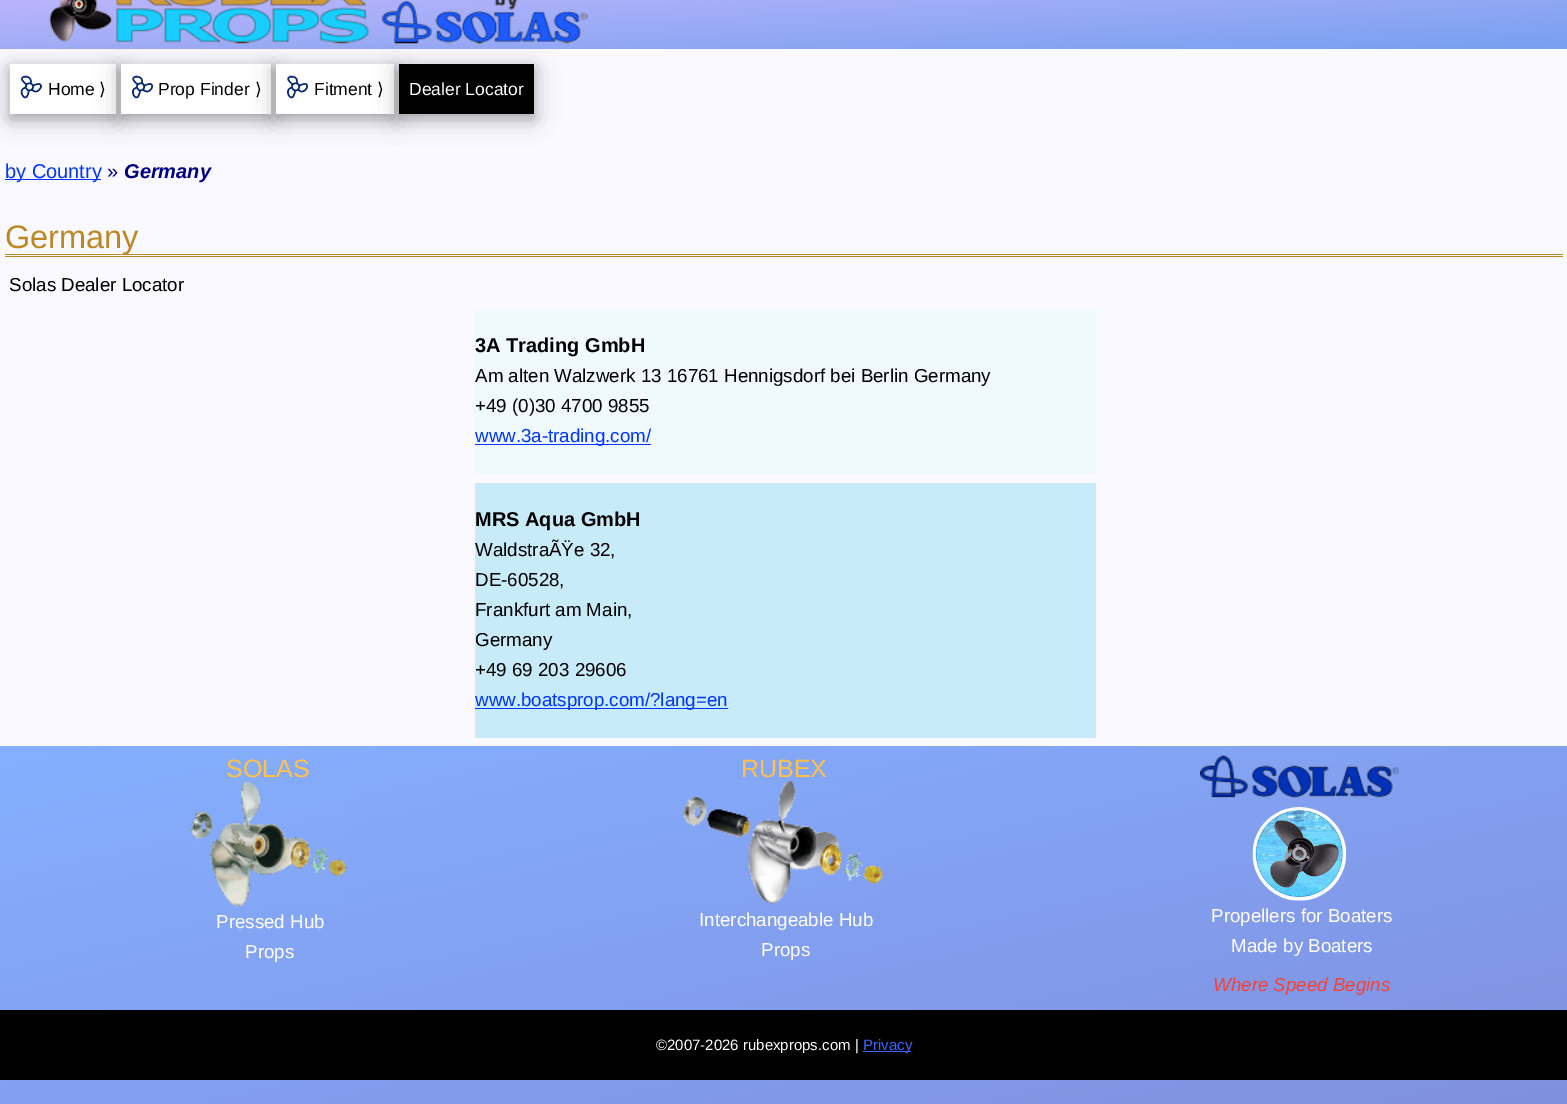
%!PS-Adobe-3.0
%%BoundingBox: 0 0 1567 1104
%%LanguageLevel: 3
%%Pages: 1
%%EndComments
%%BeginProlog
/setink { dup -16 bitshift 255 div exch dup -8 bitshift 255 and 255 div exch 255 and 255 div setrgbcolor } def
/usefont { [ exch dup neg 0 0 3 -1 roll 0 0 ] selectfont } def
/setalpha { dup .setfillconstantalpha .setstrokeconstantalpha } def
/rrect { 5 dict begin { /r /h /w /y /x } { exch def } forall
  x r add y moveto x w add y 2 copy h add r arct x w add y h add x 1 index r arct
  x y h add x y r arct x y 2 copy exch w add exch r arct closepath end } def
/softshadow { 12 dict begin { /a /b /q /h /w /y /x } { exch def } forall gsave /was 0 def
  9 -2 -9 { dup b mul 4 div /e exch def 1 sub .425 mul 2.718 exch exp 1 add a .99 .min exch div /now exch def
    1 1 now sub 1 was sub div sub setalpha /was now def
    w h .min e 2 mul add 0 gt { x e sub y e sub w e 2 mul add h e 2 mul add
      q e add b .6 mul add w h .min 2 div e add .min 0 .max rrect fill } if } for grestore end } def
/drawimage { 5 dict begin { /h /w /y /x /name } { exch def } forall
  gsave x y translate w h scale
  w h 8 [w 0 0 h 0 0] name (r) file false 3 colorimage grestore end } def
%%EndProlog
%%BeginSetup
<< /PageSize [1567 1104] /PageUsesTransparency true >> setpagedevice
%%EndSetup
%%Page: 1 1
0 .pushpdf14devicefilter
0 1104 translate 1 -1 scale
4 setmiterlimit
16#F9F9FF setink
0 0 1567 1104 rectfill
gsave 0 0 moveto 1567 0 lineto 1567 49 lineto 0 49 lineto closepath clip newpath
<< /ShadingType 2 /ColorSpace /DeviceRGB /Coords [779 -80 788 92] /Extend [true true] /Function << /FunctionType 2 /Domain [0 1] /C0 [0.812 0.729 1] /C1 [0.459 0.627 0.941] /N 1 >> >> shfill grestore
16#000000 setink
10 69 106 50 0 12.5 0.19 softshadow
10 69 106 50 0 6 0.2 softshadow
16#FFFFFF setink
10 64 106 50 rectfill
16#000000 setink
121 69 150 50 0 12.5 0.19 softshadow
121 69 150 50 0 6 0.2 softshadow
16#FFFFFF setink
121 64 150 50 rectfill
16#000000 setink
276 69 118 50 0 12.5 0.19 softshadow
276 69 118 50 0 6 0.2 softshadow
16#FFFFFF setink
276 64 118 50 rectfill
16#000000 setink
399 69 135 50 0 12.5 0.19 softshadow
(img1.raw) 49 0 539 44 drawimage
(img2.raw) 20 75 22 24 drawimage
/LiberationSans-Regular 17.5 usefont
48 95 moveto (Home) show
/DejaVuSans-Regular 17.5 usefont
99 95 moveto (⟩) show
(img3.raw) 132 75 21 24 drawimage
/LiberationSans-Regular 17.5 usefont
158 95 moveto (Prop Finder) show
/DejaVuSans-Regular 17.5 usefont
255 95 moveto (⟩) show
(img3.raw) 287 75 21 24 drawimage
/LiberationSans-Regular 17.5 usefont
314 95 moveto (Fitment) show
/DejaVuSans-Regular 17.5 usefont
377 95 moveto (⟩) show
399 69 135 50 0 6 0.2 softshadow
399 64 135 50 rectfill
/LiberationSans-Regular 17.5 usefont
16#FFFFFF setink
409 95 moveto (Dealer Locator) show
16#0034FF setink
5 179 96 1 rectfill
/LiberationSans-Regular 20 usefont
5 178 moveto (by Country) show
16#000080 setink
107 178 moveto (») show
/LiberationSans-BoldItalic 20 usefont
124 178 moveto (Germany) show
16#BB8822 setink
5 254 1558 1 rectfill
5 256 1558 1 rectfill
/LiberationSans-Regular 32.5 usefont
5 248 moveto (Germany) show
/LiberationSans-Regular 18.75 usefont
16#000000 setink
9 291 moveto (Solas Dealer Locator) show
16#F0F9FE setink
475 309 621 165 rectfill
/LiberationSans-Bold 20 usefont
16#000000 setink
475 352 moveto (3A Trading GmbH) show
/LiberationSans-Regular 18.75 usefont
475 382 moveto (Am alten Walzwerk 13 16761 Hennigsdorf bei Berlin Germany) show
475 412 moveto (+49 \(0\)30 4700 9855) show
16#0034FF setink
475 444 176 1 rectfill
475 442 moveto (www.3a-trading.com/) show
16#C8EBF9 setink
475 483 621 255 rectfill
/LiberationSans-Bold 20 usefont
16#000000 setink
475 526 moveto (MRS Aqua GmbH) show
/LiberationSans-Regular 18.75 usefont
[
    [(WaldstraÃŸe 32,) 475 556]
    [(DE-60528,) 475 586]
    [(Frankfurt am Main,) 475 616]
    [(Germany) 475 646]
    [(+49 69 203 29606) 475 676]
] { aload pop moveto show } forall
16#0034FF setink
475 708 253 1 rectfill
475 706 moveto (www.boatsprop.com/?lang=en) show
gsave 0 746 moveto 1567 746 lineto 1567 1104 lineto 0 1104 lineto closepath clip newpath
<< /ShadingType 2 /ColorSpace /DeviceRGB /Coords [704 583 863 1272] /Extend [true true] /Function << /FunctionType 2 /Domain [0 1] /C0 [0.522 0.69 1] /C1 [0.502 0.565 0.878] /N 1 >> >> shfill grestore
/LiberationSans-Regular 25 usefont
16#FFC146 setink
226 777 moveto (SOLAS) show
(img4.raw) 190 780 157 127 drawimage
/LiberationSans-Regular 18.75 usefont
16#FFFFFF setink
216 928 moveto (Pressed Hub) show
245 958 moveto (Props) show
/LiberationSans-Regular 25 usefont
16#FFC146 setink
741 777 moveto (RUBEX) show
(img5.raw) 683 780 200 124 drawimage
/LiberationSans-Regular 18.75 usefont
16#FFFFFF setink
699 926 moveto (Interchangeable Hub) show
761 956 moveto (Props) show
(img6.raw) 1200 755 199 43 drawimage
(img7.raw) 1252 807 95 94 drawimage
1211 922 moveto (Propellers for Boaters) show
1231 952 moveto (Made by Boaters) show
/LiberationSans-Italic 18.75 usefont
16#F44336 setink
1213 991 moveto (Where Speed Begins) show
16#000000 setink
0 1010 1567 70 rectfill
/LiberationSans-Regular 15 usefont
16#FFFFFF setink
656 1050 moveto (©2007-2026 rubexprops.com |) show
16#3E65FF setink
863 1051 48 1 rectfill
863 1050 moveto (Privacy) show
.poppdf14devicefilter showpage
%%EOF
